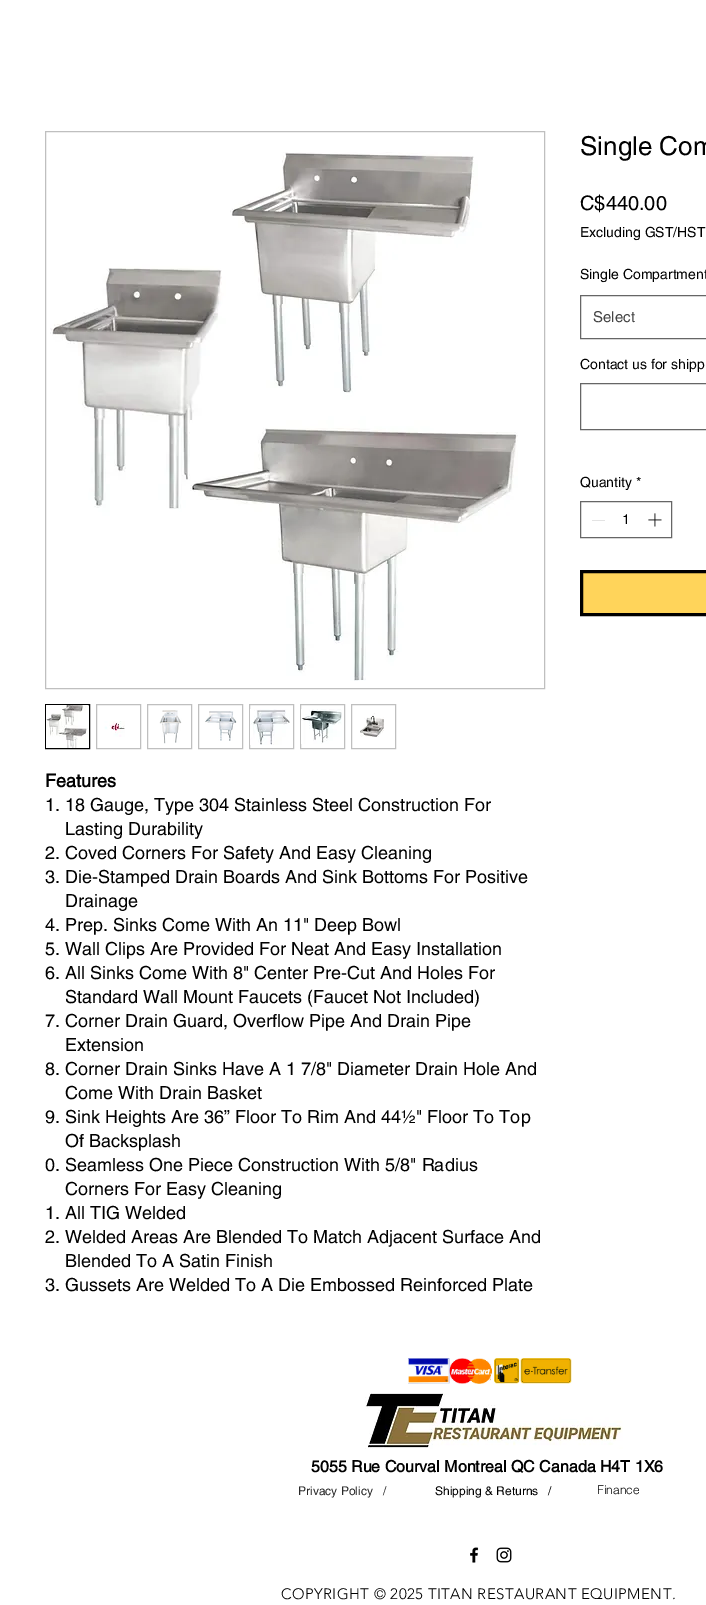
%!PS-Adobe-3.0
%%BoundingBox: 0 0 706 1605
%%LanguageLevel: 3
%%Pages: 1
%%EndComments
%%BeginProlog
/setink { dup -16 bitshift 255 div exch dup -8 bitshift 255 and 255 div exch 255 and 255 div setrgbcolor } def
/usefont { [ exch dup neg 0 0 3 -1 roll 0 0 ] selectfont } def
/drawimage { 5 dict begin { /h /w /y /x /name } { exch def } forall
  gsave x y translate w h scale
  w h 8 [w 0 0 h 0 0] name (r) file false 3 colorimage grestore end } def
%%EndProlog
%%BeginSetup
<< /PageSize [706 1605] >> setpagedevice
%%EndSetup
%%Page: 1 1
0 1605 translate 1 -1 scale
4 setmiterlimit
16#FFFFFF setink
0 0 706 1605 rectfill
/helvetica-Regular 26 usefont
16#000000 setink
580 155 moveto (Single Com) show
/helvetica-Regular 20 usefont
580 210 moveto (C$440.00) show
/helvetica-Regular 14 usefont
580 237 moveto (Excluding GST/HST) show
580 279 moveto (Single Compartment) show
16#666666 setink
580.5 295.5 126 43 rectstroke
/helvetica-Regular 15 usefont
16#444444 setink
593 322 moveto (Select) show
/helvetica-Regular 14 usefont
16#000000 setink
580 369 moveto (Contact us for shipp) show
16#666666 setink
580.5 383.5 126 46 rectstroke
16#000000 setink
580 487 moveto (Quantity *) show
16#666666 setink
580.5 501.5 91 36 rectstroke
16#E3E3E3 setink
592 520 13 1 rectfill
16#000000 setink
622 524 moveto (1) show
(img1.raw) 648 513 14 14 drawimage
16#FFD45A setink
581.5 571.5 moveto 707.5 571.5 lineto 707.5 614.5 lineto 581.5 614.5 lineto closepath gsave fill grestore
16#000000 setink
3 setlinewidth
stroke
16#BFBFBF setink
1 setlinewidth
45.5 131.5 499 557 rectstroke
(img2.raw) 50 152 468 529 drawimage
16#000000 setink
45.5 704.5 44 44 rectstroke
(img3.raw) 46 705 42 43 drawimage
16#BFBFBF setink
96.5 704.5 44 44 rectstroke
(img4.raw) 104 721 21 16 drawimage
147.5 704.5 44 44 rectstroke
(img5.raw) 159 710 23 34 drawimage
198.5 704.5 44 44 rectstroke
(img6.raw) 205 711 32 30 drawimage
249.5 704.5 44 44 rectstroke
(img7.raw) 250 709 40 36 drawimage
300.5 704.5 44 44 rectstroke
(img8.raw) 301 709 41 35 drawimage
351.5 704.5 44 44 rectstroke
(img9.raw) 360 713 24 24 drawimage
/helvetica-Bold 18 usefont
16#000000 setink
45 787 moveto (Features) show
/helvetica-Regular 18 usefont
[
    [(1. 18 Gauge, Type 304 Stainless Steel Construction For) 45 811]
    [(Lasting Durability) 65 835]
    [(2. Coved Corners For Safety And Easy Cleaning) 45 859]
    [(3. Die-Stamped Drain Boards And Sink Bottoms For Positive) 45 883]
    [(Drainage) 65 907]
    [(4. Prep. Sinks Come With An 11" Deep Bowl) 45 931]
    [(5. Wall Clips Are Provided For Neat And Easy Installation) 45 955]
    [(6. All Sinks Come With 8" Center Pre-Cut And Holes For) 45 979]
    [(Standard Wall Mount Faucets \(Faucet Not Included\)) 65 1003]
    [(7. Corner Drain Guard, Overflow Pipe And Drain Pipe) 45 1027]
    [(Extension) 65 1051]
    [(8. Corner Drain Sinks Have A 1 7/8" Diameter Drain Hole And) 45 1075]
    [(Come With Drain Basket) 65 1099]
    [(9. Sink Heights Are 36” Floor To Rim And 44½" Floor To Top) 45 1123]
    [(Of Backsplash) 65 1147]
    [(0. Seamless One Piece Construction With 5/8" Radius) 45 1171]
    [(Corners For Easy Cleaning) 65 1195]
    [(1. All TIG Welded) 45 1219]
    [(2. Welded Areas Are Blended To Match Adjacent Surface And) 45 1243]
    [(Blended To A Satin Finish) 65 1267]
    [(3. Gussets Are Welded To A Die Embossed Reinforced Plate) 45 1291]
] { aload pop moveto show } forall
(img10.raw) 408 1358 164 26 drawimage
(img11.raw) 365 1393 258 56 drawimage
/helvetica-Bold 16 usefont
311 1472 moveto (5055 Rue Courval Montreal QC Canada H4T 1X6) show
/helvetica-Regular 12 usefont
16#292929 setink
298 1495 moveto (Privacy Policy   /) show
16#000000 setink
435 1495 moveto (Shipping & Returns   /) show
/helvetica-Light 12 usefont
597 1494 moveto (Finance) show
(img12.raw) 470 1547 9 16 drawimage
(img13.raw) 496 1547 16 16 drawimage
/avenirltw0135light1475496-Light 15 usefont
281 1599 moveto 0.45 0 (COPYRIGHT © 2025 TITAN RESTAURANT EQUIPMENT.) ashow
showpage
%%EOF
